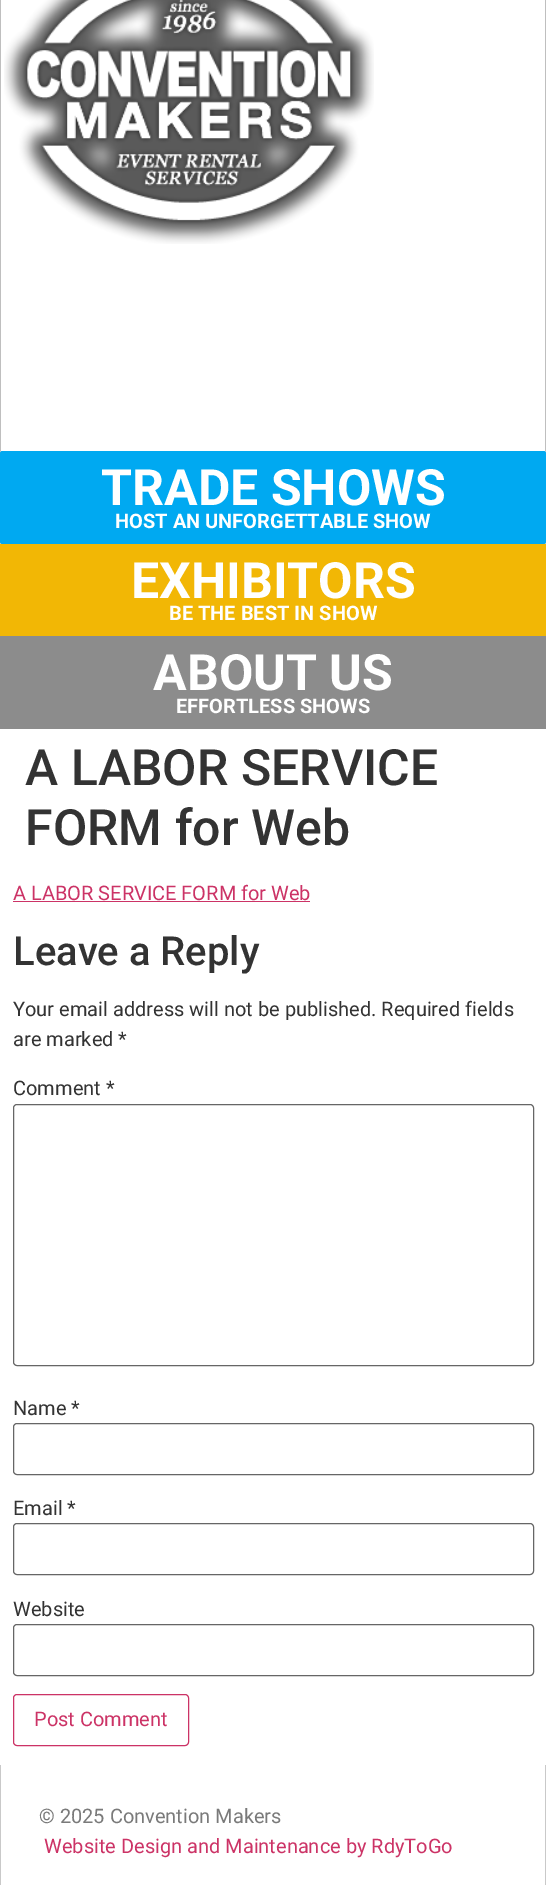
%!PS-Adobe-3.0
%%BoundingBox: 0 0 546 1885
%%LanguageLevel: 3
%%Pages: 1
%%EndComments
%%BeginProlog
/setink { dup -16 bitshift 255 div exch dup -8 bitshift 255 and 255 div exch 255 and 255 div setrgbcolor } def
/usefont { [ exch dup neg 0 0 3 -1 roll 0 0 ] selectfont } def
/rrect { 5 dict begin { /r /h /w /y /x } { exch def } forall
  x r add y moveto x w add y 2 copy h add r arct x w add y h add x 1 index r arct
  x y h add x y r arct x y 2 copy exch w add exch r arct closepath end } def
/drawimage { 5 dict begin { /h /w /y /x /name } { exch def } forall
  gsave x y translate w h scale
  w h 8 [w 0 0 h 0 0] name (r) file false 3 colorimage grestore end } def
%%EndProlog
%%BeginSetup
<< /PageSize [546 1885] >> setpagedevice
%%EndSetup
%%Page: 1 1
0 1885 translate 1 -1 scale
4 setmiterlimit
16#FFFFFF setink
0 0 546 1885 rectfill
16#BFBFBF setink
545 0 1 451 rectfill
0 0 1 451 rectfill
(img1.raw) 4 0 370 244 drawimage
(img2.raw) 0 451 546 93 drawimage
16#00A9F1 setink
0 451 546 93 2.5 rrect fill
/Roboto-Bold 50 usefont
16#FFFFFF setink
101 505 moveto (TRADE SHOWS) show
/Roboto-Bold 20 usefont
115 528 moveto (HOST AN UNFORGETTABLE SHOW) show
16#F2B705 setink
0 544 546 92 rectfill
/Roboto-Bold 50 usefont
16#FFFFFF setink
131 598 moveto (EXHIBITORS) show
/Roboto-Bold 20 usefont
169 620 moveto (BE THE BEST IN SHOW) show
16#8C8C8C setink
0 636 546 93 rectfill
/Roboto-Bold 50 usefont
16#FFFFFF setink
153 690 moveto (ABOUT US) show
/Roboto-Bold 20 usefont
176 713 moveto (EFFORTLESS SHOWS) show
/Roboto-Medium 50 usefont
16#333333 setink
25 785 moveto (A LABOR SERVICE) show
25 845 moveto (FORM for Web) show
/Roboto-Regular 20 usefont
16#CC3366 setink
13 900 moveto (A LABOR SERVICE FORM for Web) show
13 901 297 1 rectfill
/Roboto-Medium 40 usefont
16#333333 setink
13 965 moveto (Leave a Reply) show
/Roboto-Regular 20 usefont
[
    [(Your email address will not be published. Required fields) 13 1016]
    [(are marked *) 13 1046]
    [(Comment *) 13 1095]
] { aload pop moveto show } forall
16#666666 setink
13.5 1104.5 520 261 3.5 rrect stroke
16#333333 setink
13 1415 moveto (Name *) show
16#666666 setink
13.5 1423.5 520 51 3.5 rrect stroke
16#333333 setink
13 1515 moveto (Email *) show
16#666666 setink
13.5 1523.5 520 51 3.5 rrect stroke
16#333333 setink
13 1616 moveto (Website) show
16#666666 setink
13.5 1624.5 520 51 3.5 rrect stroke
16#CC3366 setink
13.5 1694.5 175 51 3.5 rrect stroke
34 1726 moveto (Post Comment) show
16#C9C9C9 setink
545 1765 1 120 rectfill
0 1765 1 120 rectfill
16#7A7A7A setink
39 1823 moveto (© 2025 Convention Makers) show
16#CC3366 setink
44 1853 moveto (Website Design and Maintenance by RdyToGo) show
showpage
%%EOF
